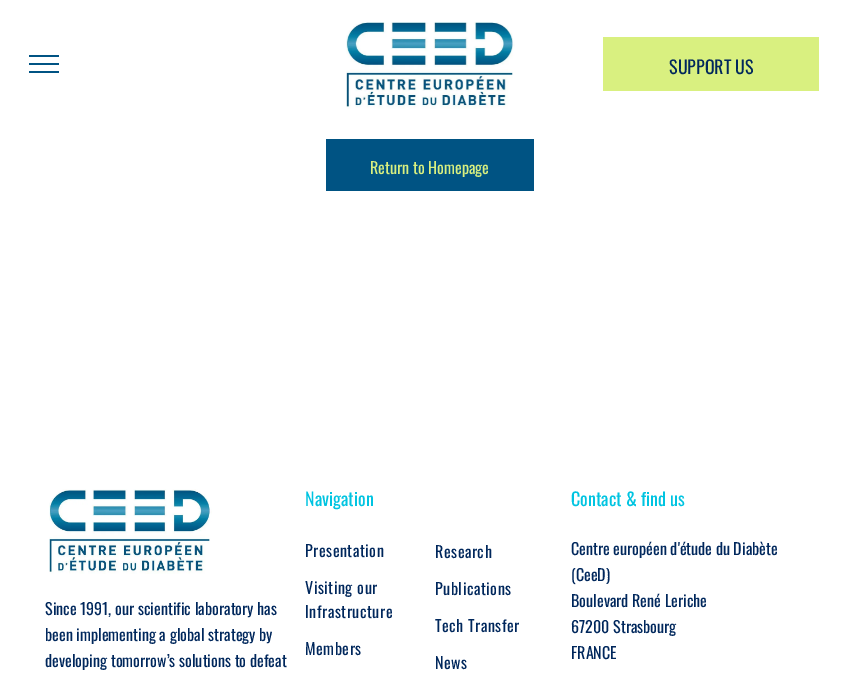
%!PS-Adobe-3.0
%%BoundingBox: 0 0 859 674
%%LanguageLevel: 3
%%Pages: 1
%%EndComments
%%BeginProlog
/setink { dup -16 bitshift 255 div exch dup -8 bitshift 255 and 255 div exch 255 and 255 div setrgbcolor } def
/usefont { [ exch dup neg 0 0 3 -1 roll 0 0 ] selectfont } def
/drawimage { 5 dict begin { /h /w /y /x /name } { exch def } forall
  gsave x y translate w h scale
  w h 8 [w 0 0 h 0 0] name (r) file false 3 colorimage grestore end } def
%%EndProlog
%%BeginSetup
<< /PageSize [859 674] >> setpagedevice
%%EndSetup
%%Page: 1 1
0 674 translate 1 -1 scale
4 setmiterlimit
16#FFFFFF setink
0 0 859 674 rectfill
[
    [29 55 30 2 16#005383]
    [29 63 30 2 16#005383]
    [29 71 30 2 16#005383]
] { aload pop setink rectfill } forall
(img1.raw) 346 22 169 87 drawimage
16#D9F080 setink
603 37 216 54 rectfill
/Oswald-Regular 18 usefont
16#00275C setink
669 74 moveto (SUPPORT US) show
16#005383 setink
326 139 208 52 rectfill
/Oswald-Regular 16 usefont
16#D9F080 setink
370 174 moveto (Return to Homepage) show
(img2.raw) 49 489 163 85 drawimage
16#00275C setink
[
    [(Since 1991, our scientific laboratory has) 45 615]
    [(been implementing a global strategy by) 45 641]
    [(developing tomorrow’s solutions to defeat) 45 667]
] { aload pop moveto show } forall
/Oswald-Regular 18 usefont
16#00C4E1 setink
305 506 moveto (Navigation) show
/Oswald-Regular 16 usefont
16#00275C setink
305 557 moveto 0.5 0 (Presentation) ashow
305 594 moveto 0.5 0 (Visiting our) ashow
305 618 moveto 0.5 0 (Infrastructure) ashow
305 655 moveto 0.5 0 (Members) ashow
435 558 moveto 0.5 0 (Research) ashow
435 595 moveto 0.5 0 (Publications) ashow
435 632 moveto 0.5 0 (Tech Transfer) ashow
435 669 moveto 0.5 0 (News) ashow
/Oswald-Regular 18 usefont
16#00C4E1 setink
571 506 moveto (Contact & find us) show
/Oswald-Regular 16 usefont
16#00275C setink
[
    [(Centre européen d'étude du Diabète) 571 555]
    [(\(CeeD\)) 571 581]
    [(Boulevard René Leriche) 571 607]
    [(67200 Strasbourg) 571 633]
    [(FRANCE) 571 659]
] { aload pop moveto show } forall
showpage
%%EOF
